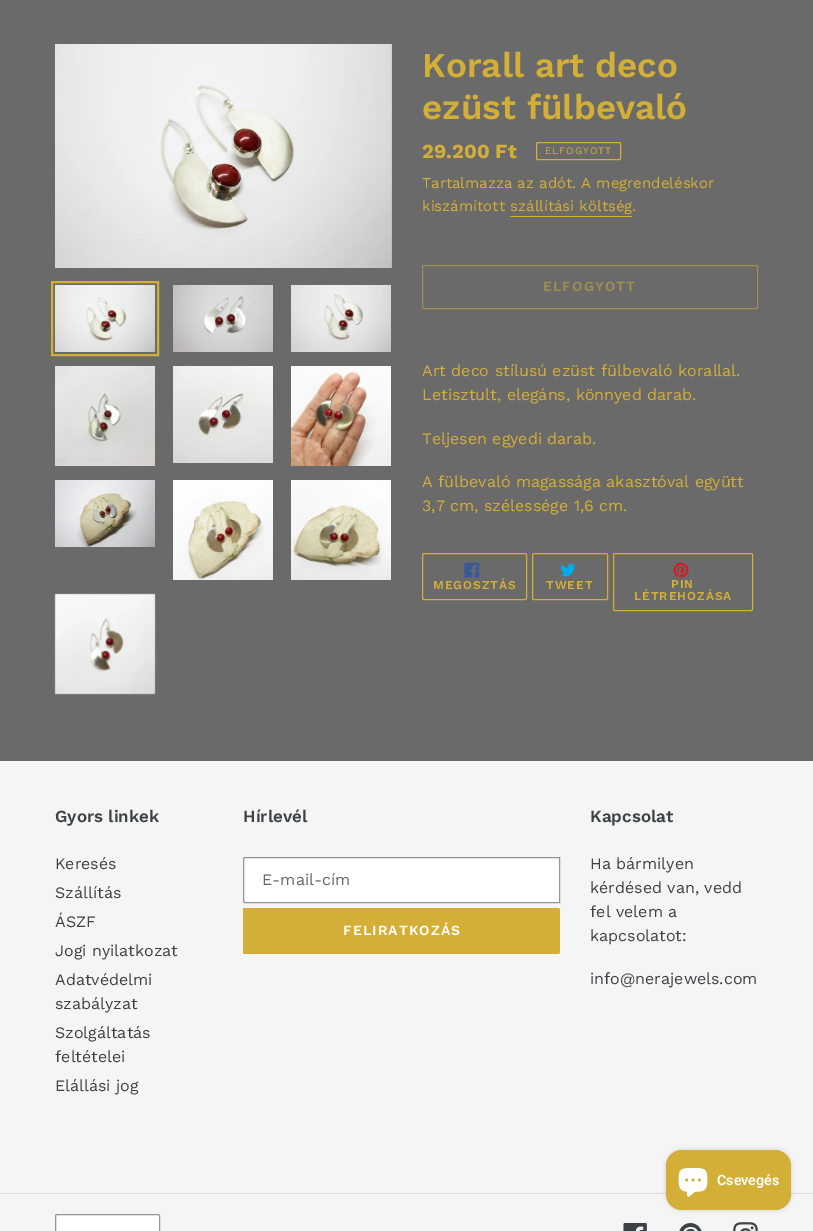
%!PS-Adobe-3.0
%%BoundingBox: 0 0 813 1231
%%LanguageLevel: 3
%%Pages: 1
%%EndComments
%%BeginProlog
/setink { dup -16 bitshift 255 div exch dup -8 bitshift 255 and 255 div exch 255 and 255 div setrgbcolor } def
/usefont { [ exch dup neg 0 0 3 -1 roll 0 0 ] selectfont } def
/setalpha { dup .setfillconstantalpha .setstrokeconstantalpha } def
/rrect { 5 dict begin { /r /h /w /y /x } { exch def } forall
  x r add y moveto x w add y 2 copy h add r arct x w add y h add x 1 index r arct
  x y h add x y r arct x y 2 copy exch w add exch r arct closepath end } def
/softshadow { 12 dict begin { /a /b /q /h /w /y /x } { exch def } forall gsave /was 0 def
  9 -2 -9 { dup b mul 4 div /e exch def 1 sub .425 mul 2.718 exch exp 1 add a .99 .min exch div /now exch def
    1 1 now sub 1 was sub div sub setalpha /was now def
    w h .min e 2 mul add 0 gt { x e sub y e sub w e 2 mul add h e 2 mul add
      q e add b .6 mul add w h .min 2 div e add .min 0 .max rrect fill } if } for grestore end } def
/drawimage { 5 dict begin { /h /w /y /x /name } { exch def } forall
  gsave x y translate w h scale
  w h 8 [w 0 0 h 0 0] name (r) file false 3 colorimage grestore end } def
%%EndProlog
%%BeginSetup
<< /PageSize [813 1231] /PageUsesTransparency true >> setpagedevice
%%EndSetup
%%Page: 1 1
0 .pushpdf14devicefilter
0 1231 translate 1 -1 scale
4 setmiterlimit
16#6A6A6A setink
0 0 813 1231 rectfill
(img1.raw) 55 44 337 224 drawimage
16#D4AF37 setink
2 setlinewidth
52 282 106 73 rectstroke
(img2.raw) 55 285 100 67 drawimage
(img3.raw) 173 285 100 67 drawimage
(img4.raw) 291 285 100 67 drawimage
(img5.raw) 55 366 100 100 drawimage
(img6.raw) 173 366 100 97 drawimage
(img7.raw) 291 366 100 100 drawimage
(img8.raw) 55 480 100 67 drawimage
(img9.raw) 173 480 100 100 drawimage
(img10.raw) 291 480 100 100 drawimage
(img11.raw) 54 593 102 102 drawimage
/WorkSans-SemiBold 35 usefont
422 77 moveto (Korall art deco) show
422 119 moveto (ezüst fülbevaló) show
/WorkSans-Bold 20 usefont
422 158 moveto (29.200 Ft) show
1 setlinewidth
536.5 142.5 84 17 1.5 rrect stroke
/WorkSans-Regular 10 usefont
545 154 moveto 1 0 (ELFOGYOTT) ashow
/WorkSans-Regular 15 usefont
422 188 moveto (Tartalmazza az adót. A megrendeléskor) show
422 211 moveto (kiszámított szállítási költség.) show
510 216 122 1 rectfill
16#9F8D51 setink
422.5 265.5 335 43 1.5 rrect stroke
/WorkSans-SemiBold 14 usefont
543 291 moveto 1.1 0 (ELFOGYOTT) ashow
/WorkSans-Regular 16 usefont
16#D4AF37 setink
[
    [(Art deco stílusú ezüst fülbevaló korallal.) 422 376]
    [(Letisztult, elegáns, könnyed darab.) 422 400]
    [(Teljesen egyedi darab.) 422 444]
    [(A fülbevaló magassága akasztóval együtt) 422 487]
    [(3,7 cm, szélessége 1,6 cm.) 422 511]
] { aload pop moveto show } forall
422.5 553.5 104 46 1.5 rrect stroke
(img12.raw) 464 562 16 16 drawimage
/WorkSans-SemiBold 12 usefont
433 589 moveto 1 0 (MEGOSZTÁS) ashow
532.5 553.5 75 46 1.5 rrect stroke
(img13.raw) 560 563 16 14 drawimage
546 589 moveto 1 0 (TWEET) ashow
613.5 553.5 139 57 1.5 rrect stroke
(img14.raw) 673 562 16 16 drawimage
671 588 moveto 1 0 (PIN) ashow
634 600 moveto 1 0 (LÉTREHOZÁSA) ashow
16#F5F5F5 setink
0 761 813 470 rectfill
/WorkSans-SemiBold 17 usefont
16#3D4246 setink
55 822 moveto (Gyors linkek) show
/WorkSans-Regular 16 usefont
[
    [(Keresés) 55 869]
    [(Szállítás) 55 898]
    [(ÁSZF) 55 927]
    [(Jogi nyilatkozat) 55 956]
    [(Adatvédelmi) 55 985]
    [(szabályzat) 55 1009]
    [(Szolgáltatás) 55 1038]
    [(feltételei) 55 1062]
    [(Elállási jog) 55 1091]
] { aload pop moveto show } forall
/WorkSans-SemiBold 17 usefont
243 822 moveto (Hírlevél) show
16#FFFFFF setink
245 857.5 moveto 559.5 857.5 lineto 559.5 902.5 lineto 245 902.5 lineto 244 902.5 243.5 902 243.5 901 curveto 243.5 859 lineto 243.5 858 244 857.5 245 857.5 curveto closepath gsave fill grestore
16#949494 setink
stroke
/WorkSans-Regular 16 usefont
16#666666 setink
262 885 moveto (E-mail-cím) show
16#D4AF37 setink
243 908 moveto 558 908 lineto 559 908 560 909 560 910 curveto 560 952 lineto 560 953 559 954 558 954 curveto 243 954 lineto closepath fill
/WorkSans-SemiBold 14 usefont
16#FFFFFF setink
343 935 moveto 1.1 0 (FELIRATKOZÁS) ashow
/WorkSans-SemiBold 17 usefont
16#3D4246 setink
590 822 moveto (Kapcsolat) show
/WorkSans-Regular 16 usefont
[
    [(Ha bármilyen) 590 869]
    [(kérdésed van, vedd) 590 893]
    [(fel velem a) 590 917]
    [(kapcsolatot:) 590 941]
    [(info@nerajewels.com) 590 984]
] { aload pop moveto show } forall
16#DCDCDC setink
0 1193 813 1 rectfill
16#FFFFFF setink
55.5 1214.5 104 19 1.5 rrect gsave fill grestore
16#949494 setink
stroke
(img15.raw) 623 1223 24 8 drawimage
(img16.raw) 679 1223 23 8 drawimage
(img17.raw) 733 1222 25 9 drawimage
16#000000 setink
666 1150 125 60 16 2.5 0.15 softshadow
16#D4AF37 setink
666 1150 125 60 16 rrect fill
(img18.raw) 678 1168 30 29 drawimage
/Roboto-SemiBold 14.25 usefont
16#FFFFFF setink
717 1185 moveto (Csevegés) show
.poppdf14devicefilter showpage
%%EOF
